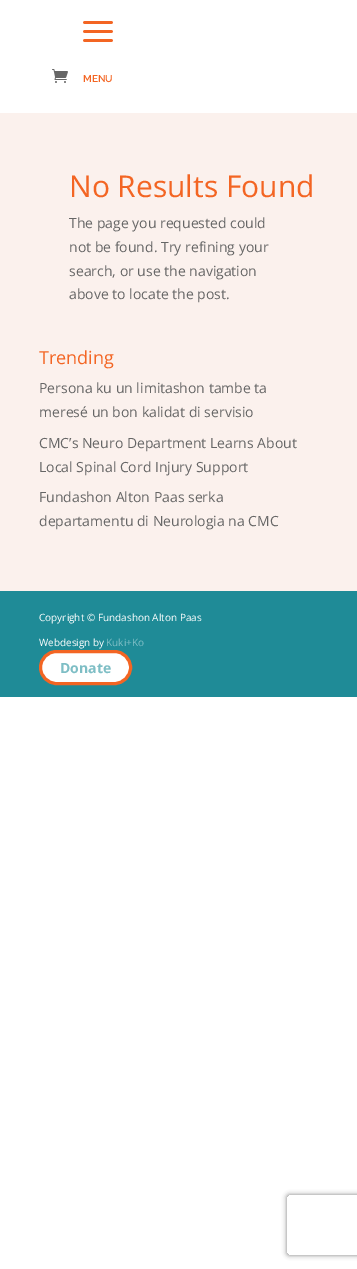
%!PS-Adobe-3.0
%%BoundingBox: 0 0 357 1269
%%LanguageLevel: 3
%%Pages: 1
%%EndComments
%%BeginProlog
/setink { dup -16 bitshift 255 div exch dup -8 bitshift 255 and 255 div exch 255 and 255 div setrgbcolor } def
/usefont { [ exch dup neg 0 0 3 -1 roll 0 0 ] selectfont } def
/setalpha { dup .setfillconstantalpha .setstrokeconstantalpha } def
/rrect { 5 dict begin { /r /h /w /y /x } { exch def } forall
  x r add y moveto x w add y 2 copy h add r arct x w add y h add x 1 index r arct
  x y h add x y r arct x y 2 copy exch w add exch r arct closepath end } def
/softshadow { 12 dict begin { /a /b /q /h /w /y /x } { exch def } forall gsave /was 0 def
  9 -2 -9 { dup b mul 4 div /e exch def 1 sub .425 mul 2.718 exch exp 1 add a .99 .min exch div /now exch def
    1 1 now sub 1 was sub div sub setalpha /was now def
    w h .min e 2 mul add 0 gt { x e sub y e sub w e 2 mul add h e 2 mul add
      q e add b .6 mul add w h .min 2 div e add .min 0 .max rrect fill } if } for grestore end } def
/drawimage { 5 dict begin { /h /w /y /x /name } { exch def } forall
  gsave x y translate w h scale
  w h 8 [w 0 0 h 0 0] name (r) file false 3 colorimage grestore end } def
%%EndProlog
%%BeginSetup
<< /PageSize [357 1269] /PageUsesTransparency true >> setpagedevice
%%EndSetup
%%Page: 1 1
0 .pushpdf14devicefilter
0 1269 translate 1 -1 scale
4 setmiterlimit
16#FFFFFF setink
0 0 357 1269 rectfill
(img1.raw) 52 69 16 14 drawimage
(img2.raw) 83 21 30 21 drawimage
/Raleway-SemiBold 10 usefont
16#F36523 setink
83 82 moveto (MENU) show
16#FBF1ED setink
0 113 357 478 rectfill
/OpenSans-Regular 30 usefont
16#F36523 setink
69 197 moveto (No Results Found) show
/OpenSans-Regular 14 usefont
16#666666 setink
[
    [(The page you requested could) 69 228]
    [(not be found. Try refining your) 69 252]
    [(search, or use the navigation) 69 276]
    [(above to locate the post.) 69 299]
] { aload pop moveto show } forall
/OpenSans-Regular 18 usefont
16#F36523 setink
39 364 moveto (Trending) show
/OpenSans-Regular 14 usefont
16#666666 setink
[
    [(Persona ku un limitashon tambe ta) 39 393]
    [(meresé un bon kalidat di servisio) 39 417]
    [(CMC’s Neuro Department Learns About) 39 448]
    [(Local Spinal Cord Injury Support) 39 472]
    [(Fundashon Alton Paas serka) 39 502]
    [(departamentu di Neurologia na CMC) 39 526]
] { aload pop moveto show } forall
16#1F8B97 setink
0 591 357 106 rectfill
/OpenSans-Regular 10 usefont
16#FFFFFF setink
39 621 moveto (Copyright © Fundashon Alton Paas) show
39 646 moveto (Webdesign by) show
16#7EBEC5 setink
106 646 moveto (Kuki+Ko) show
16#FFFFFF setink
40.5 651.5 90 32 16 rrect gsave fill grestore
16#F36523 setink
3 setlinewidth
stroke
/OpenSans-Bold 14 usefont
16#7EBEC5 setink
60 673 moveto (Donate) show
gsave
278 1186 moveto 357 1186 lineto 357 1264 lineto 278 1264 lineto closepath 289 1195 moveto 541 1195 lineto 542 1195 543 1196 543 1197 curveto 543 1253 lineto 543 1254 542 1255 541 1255 curveto 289 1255 lineto 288 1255 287 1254 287 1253 curveto 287 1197 lineto 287 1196 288 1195 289 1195 curveto closepath eoclip newpath
16#808080 setink
287 1195 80 60 2 2.5 1 softshadow
grestore
.poppdf14devicefilter showpage
%%EOF
